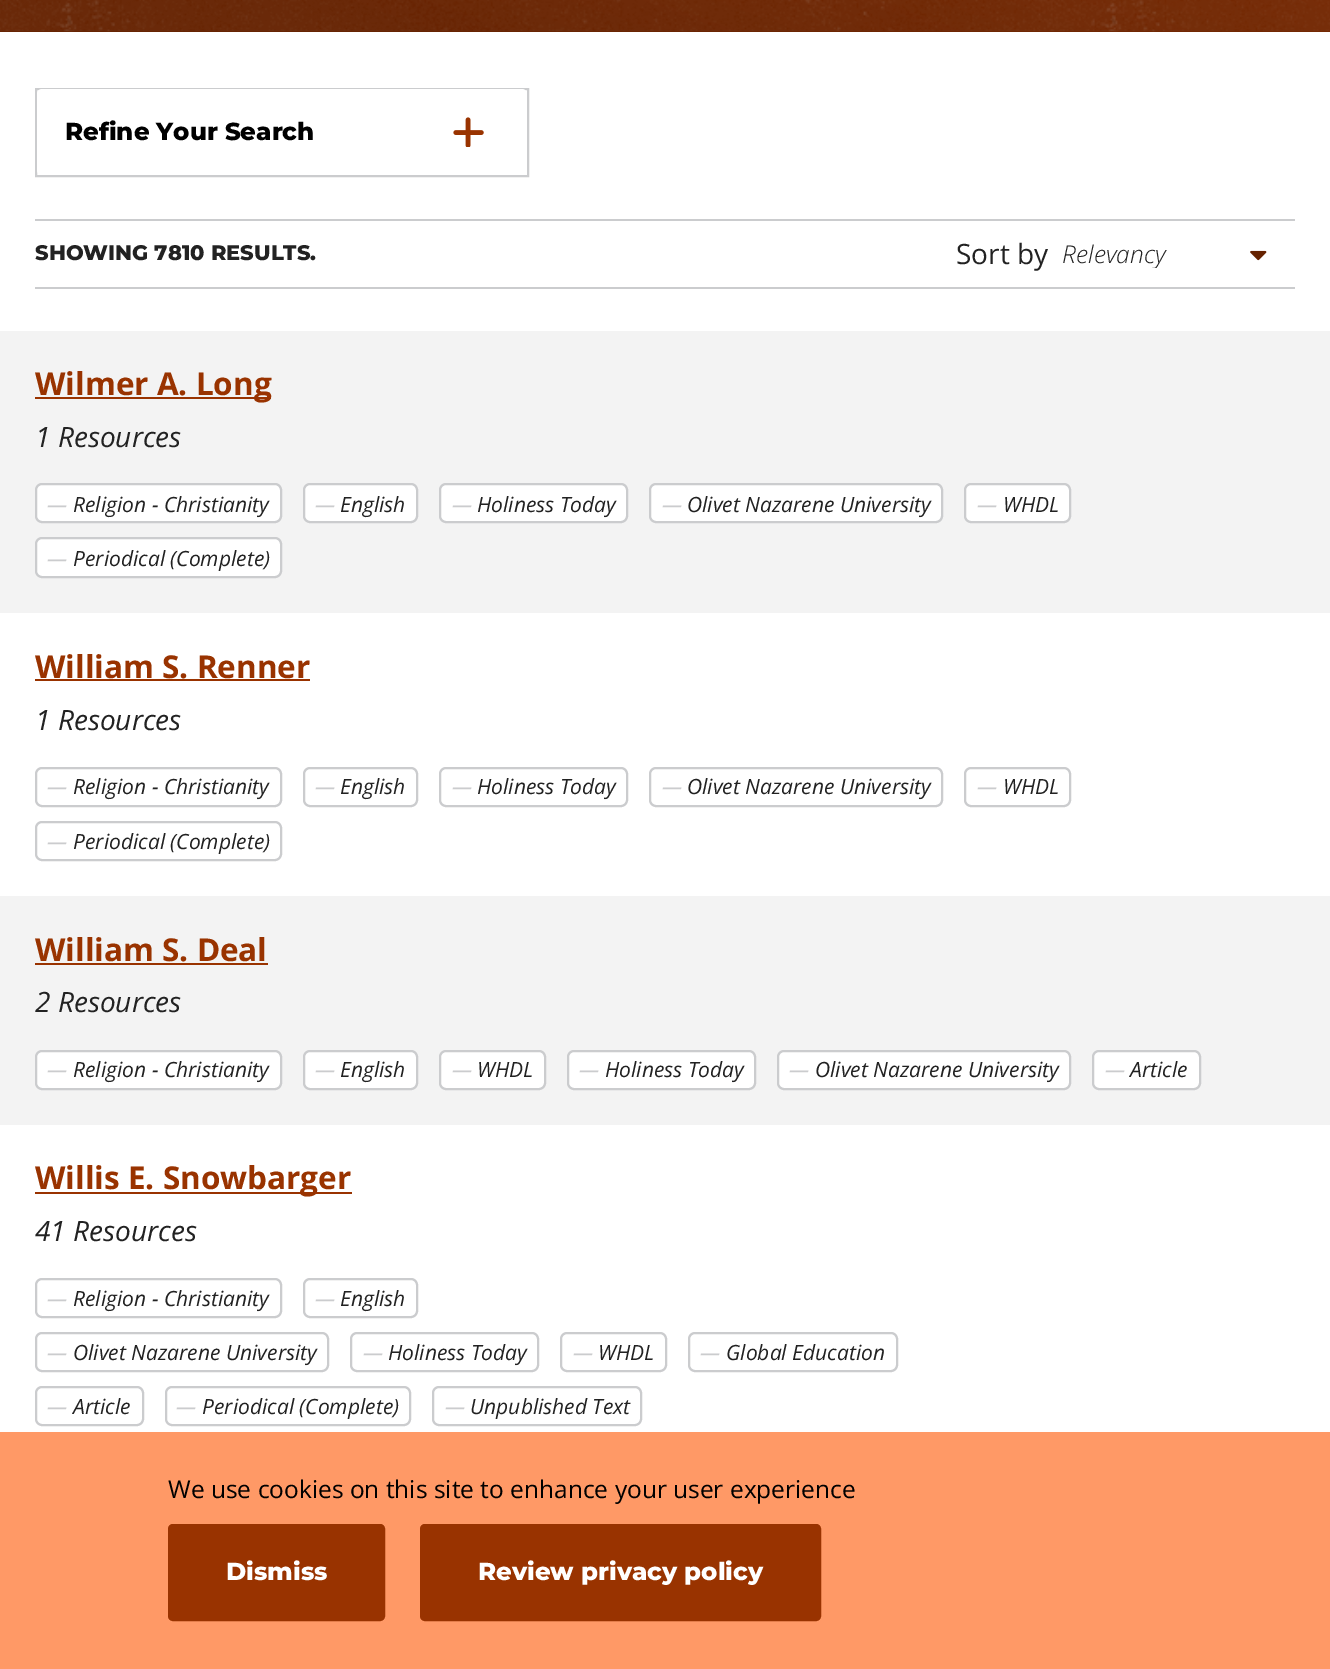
%!PS-Adobe-3.0
%%BoundingBox: 0 0 1330 1669
%%LanguageLevel: 3
%%Pages: 1
%%EndComments
%%BeginProlog
/setink { dup -16 bitshift 255 div exch dup -8 bitshift 255 and 255 div exch 255 and 255 div setrgbcolor } def
/usefont { [ exch dup neg 0 0 3 -1 roll 0 0 ] selectfont } def
/rrect { 5 dict begin { /r /h /w /y /x } { exch def } forall
  x r add y moveto x w add y 2 copy h add r arct x w add y h add x 1 index r arct
  x y h add x y r arct x y 2 copy exch w add exch r arct closepath end } def
/drawimage { 5 dict begin { /h /w /y /x /name } { exch def } forall
  gsave x y translate w h scale
  w h 8 [w 0 0 h 0 0] name (r) file false 3 colorimage grestore end } def
%%EndProlog
%%BeginSetup
<< /PageSize [1330 1669] >> setpagedevice
%%EndSetup
%%Page: 1 1
0 1669 translate 1 -1 scale
4 setmiterlimit
16#FFFFFF setink
0 0 1330 1669 rectfill
gsave 0 0 moveto 1330 0 lineto 1330 32 lineto 0 32 lineto closepath clip newpath
<< /ShadingType 2 /ColorSpace /DeviceRGB /Coords [511 216 819 -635] /Extend [true true] /Function << /FunctionType 3 /Domain [0 1] /Functions [<< /FunctionType 2 /Domain [0 1] /C0 [0.4 0.133 0] /C1 [0.4 0.133 0] /N 1 >> << /FunctionType 2 /Domain [0 1] /C0 [0.4 0.133 0] /C1 [0.522 0.173 0] /N 1 >>] /Bounds [0.15] /Encode [0 1 0 1] >> >> shfill grestore
(img1.raw) 0 0 1330 32 drawimage
16#CBCCCE setink
2 setlinewidth
36 89 492 87 rectstroke
16#FFFFFF setink
37 89 490 86 5 rrect fill
/Montserrat-ExtraBold 24.5 usefont
16#000000 setink
65 140 moveto (Refine Your Search) show
(img2.raw) 453 117 31 30 drawimage
16#CBCCCE setink
35 219 1260 2 rectfill
35 287 1260 2 rectfill
/Montserrat-ExtraBold 21 usefont
16#222222 setink
35 260 moveto (SHOWING 7810 RESULTS.) show
/OpenSans-Regular 28 usefont
956 264 moveto (Sort by) show
gsave
1062 238 163 30 rectclip
/OpenSans-LightItalic 24.5 usefont
1062 263 moveto (Relevancy) show
grestore
(img3.raw) 1250 250 17 11 drawimage
16#F3F3F3 setink
0 331 1330 282 rectfill
16#993300 setink
35 397 236 2 rectfill
/OpenSans-Bold 31.5 usefont
35 395 moveto (Wilmer A. Long) show
/OpenSans-Italic 28 usefont
16#222222 setink
35 447 moveto (1 Resources) show
16#FFFFFF setink
36 484 245 38 6 rrect gsave fill grestore
16#CBCCCE setink
stroke
/OpenSans-Italic 21 usefont
47 512 moveto (—) show
16#222222 setink
73 512 moveto (Religion - Christianity) show
16#FFFFFF setink
304 484 113 38 6 rrect gsave fill grestore
16#CBCCCE setink
stroke
315 512 moveto (—) show
16#222222 setink
340 512 moveto (English) show
16#FFFFFF setink
440 484 187 38 6 rrect gsave fill grestore
16#CBCCCE setink
stroke
452 512 moveto (—) show
16#222222 setink
477 512 moveto (Holiness Today) show
16#FFFFFF setink
650 484 292 38 6 rrect gsave fill grestore
16#CBCCCE setink
stroke
662 512 moveto (—) show
16#222222 setink
687 512 moveto (Olivet Nazarene University) show
16#FFFFFF setink
965 484 105 38 6 rrect gsave fill grestore
16#CBCCCE setink
stroke
977 512 moveto (—) show
16#222222 setink
1003 512 moveto (WHDL) show
16#FFFFFF setink
36 538 245 39 6 rrect gsave fill grestore
16#CBCCCE setink
stroke
47 566 moveto (—) show
16#222222 setink
73 566 moveto (Periodical \(Complete\)) show
/OpenSans-Bold 31.5 usefont
16#993300 setink
35 678 moveto (William S. Renner) show
35 679 275 2 rectfill
/OpenSans-Italic 28 usefont
16#222222 setink
35 730 moveto (1 Resources) show
16#CBCCCE setink
36 768 245 38 6 rrect stroke
/OpenSans-Italic 21 usefont
47 794 moveto (—) show
16#222222 setink
73 794 moveto (Religion - Christianity) show
16#CBCCCE setink
304 768 113 38 6 rrect stroke
315 794 moveto (—) show
16#222222 setink
340 794 moveto (English) show
16#CBCCCE setink
440 768 187 38 6 rrect stroke
452 794 moveto (—) show
16#222222 setink
477 794 moveto (Holiness Today) show
16#CBCCCE setink
650 768 292 38 6 rrect stroke
662 794 moveto (—) show
16#222222 setink
687 794 moveto (Olivet Nazarene University) show
16#CBCCCE setink
965 768 105 38 6 rrect stroke
977 794 moveto (—) show
16#222222 setink
1003 794 moveto (WHDL) show
16#CBCCCE setink
36 822 245 38 6 rrect stroke
47 849 moveto (—) show
16#222222 setink
73 849 moveto (Periodical \(Complete\)) show
16#F3F3F3 setink
0 896 1330 229 rectfill
/OpenSans-Bold 31.5 usefont
16#993300 setink
35 961 moveto (William S. Deal) show
35 963 233 2 rectfill
/OpenSans-Italic 28 usefont
16#222222 setink
35 1012 moveto (2 Resources) show
16#FFFFFF setink
36 1051 245 38 6 rrect gsave fill grestore
16#CBCCCE setink
stroke
/OpenSans-Italic 21 usefont
47 1077 moveto (—) show
16#222222 setink
73 1077 moveto (Religion - Christianity) show
16#FFFFFF setink
304 1051 113 38 6 rrect gsave fill grestore
16#CBCCCE setink
stroke
315 1077 moveto (—) show
16#222222 setink
340 1077 moveto (English) show
16#FFFFFF setink
440 1051 105 38 6 rrect gsave fill grestore
16#CBCCCE setink
stroke
452 1077 moveto (—) show
16#222222 setink
477 1077 moveto (WHDL) show
16#FFFFFF setink
568 1051 187 38 6 rrect gsave fill grestore
16#CBCCCE setink
stroke
579 1077 moveto (—) show
16#222222 setink
605 1077 moveto (Holiness Today) show
16#FFFFFF setink
778 1051 292 38 6 rrect gsave fill grestore
16#CBCCCE setink
stroke
789 1077 moveto (—) show
16#222222 setink
815 1077 moveto (Olivet Nazarene University) show
16#FFFFFF setink
1093 1051 107 38 6 rrect gsave fill grestore
16#CBCCCE setink
stroke
1105 1077 moveto (—) show
16#222222 setink
1130 1077 moveto (Article) show
16#993300 setink
35 1192 317 2 rectfill
/OpenSans-Bold 31.5 usefont
35 1189 moveto (Willis E. Snowbarger) show
/OpenSans-Italic 28 usefont
16#222222 setink
35 1241 moveto (41 Resources) show
16#CBCCCE setink
36 1279 245 38 6 rrect stroke
/OpenSans-Italic 21 usefont
47 1306 moveto (—) show
16#222222 setink
73 1306 moveto (Religion - Christianity) show
16#CBCCCE setink
304 1279 113 38 6 rrect stroke
315 1306 moveto (—) show
16#222222 setink
340 1306 moveto (English) show
16#CBCCCE setink
36 1333 292 38 6 rrect stroke
47 1360 moveto (—) show
16#222222 setink
73 1360 moveto (Olivet Nazarene University) show
16#CBCCCE setink
351 1333 187 38 6 rrect stroke
363 1360 moveto (—) show
16#222222 setink
388 1360 moveto (Holiness Today) show
16#CBCCCE setink
561 1333 105 38 6 rrect stroke
573 1360 moveto (—) show
16#222222 setink
598 1360 moveto (WHDL) show
16#CBCCCE setink
689 1333 208 38 6 rrect stroke
700 1360 moveto (—) show
16#222222 setink
726 1360 moveto (Global Education) show
16#CBCCCE setink
36 1387 107 38 6 rrect stroke
47 1414 moveto (—) show
16#222222 setink
73 1414 moveto (Article) show
16#CBCCCE setink
166 1387 244 38 6 rrect stroke
176 1414 moveto (—) show
16#222222 setink
202 1414 moveto (Periodical \(Complete\)) show
16#CBCCCE setink
433 1387 208 38 6 rrect stroke
445 1414 moveto (—) show
16#222222 setink
470 1414 moveto (Unpublished Text) show
16#FF9966 setink
0 1432 1330 237 rectfill
/OpenSans-Regular 24.5 usefont
16#000000 setink
168 1498 moveto (We use cookies on this site to enhance your user experience) show
16#993300 setink
170.5 1526.5 212 92 2.5 rrect gsave fill grestore
5 setlinewidth
stroke
/Montserrat-ExtraBold 24.5 usefont
16#FFFFFF setink
226 1580 moveto (Dismiss) show
16#993300 setink
422.5 1526.5 396 92 2.5 rrect gsave fill grestore
stroke
16#FFFFFF setink
478 1580 moveto (Review privacy policy) show
showpage
%%EOF
